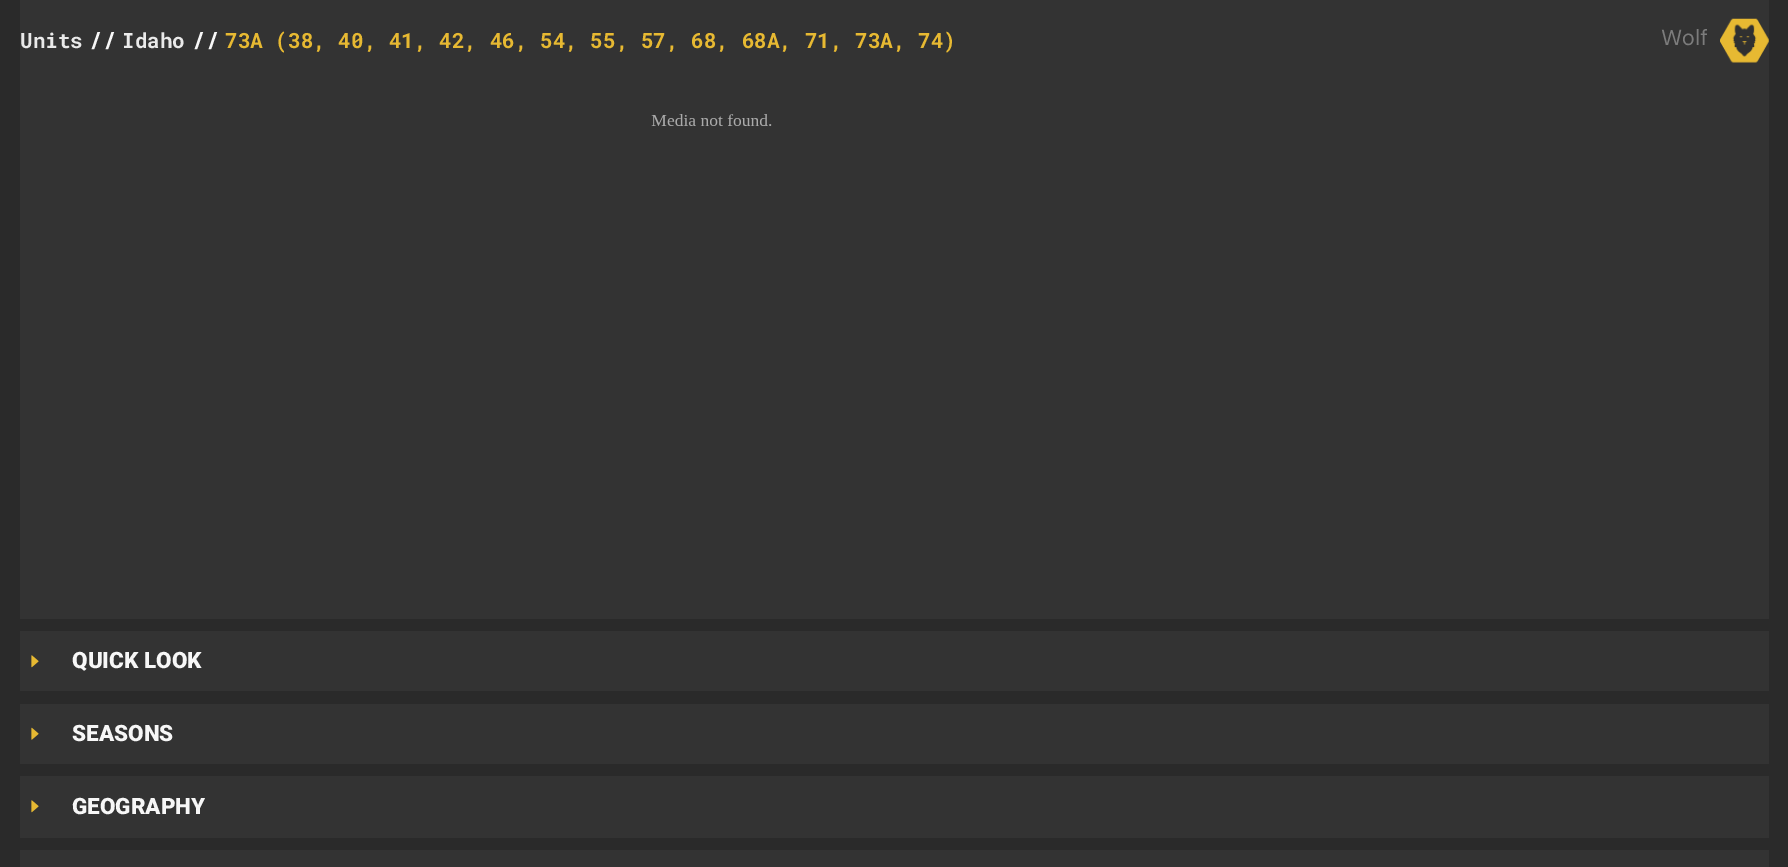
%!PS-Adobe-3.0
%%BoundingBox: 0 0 1788 867
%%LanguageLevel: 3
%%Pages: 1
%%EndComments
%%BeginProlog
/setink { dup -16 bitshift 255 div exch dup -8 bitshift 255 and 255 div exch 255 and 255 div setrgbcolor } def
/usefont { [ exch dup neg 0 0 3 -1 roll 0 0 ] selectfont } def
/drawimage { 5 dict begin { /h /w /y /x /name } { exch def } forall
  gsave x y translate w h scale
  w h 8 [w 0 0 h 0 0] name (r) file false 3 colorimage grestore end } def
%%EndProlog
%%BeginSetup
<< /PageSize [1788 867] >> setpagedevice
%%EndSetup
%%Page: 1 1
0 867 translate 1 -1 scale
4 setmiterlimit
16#2A2A2A setink
0 0 1788 867 rectfill
16#333333 setink
20 0 1749 619 rectfill
/RobotoMono-Bold 21 usefont
16#EAEAEA setink
20 48 moveto (Units) show
/RobotoMono-Bold 22.5 usefont
16#F7F7F7 setink
89 48 moveto (//) show
/RobotoMono-Bold 21 usefont
16#EAEAEA setink
122 48 moveto (Idaho) show
/RobotoMono-Bold 22.5 usefont
16#F7F7F7 setink
192 48 moveto (//) show
/RobotoMono-Bold 21 usefont
16#E7B932 setink
225 48 moveto (73A \(38, 40, 41, 42, 46, 54, 55, 57, 68, 68A, 71, 73A, 74\)) show
/Hind-Regular 22.5 usefont
16#7C7C7C setink
1661 45 moveto (Wolf) show
(img1.raw) 1720 18 49 45 drawimage
(img2.raw) 651 114 121 12 drawimage
16#333333 setink
20 631 1749 60 rectfill
(img3.raw) 31 655 8 13 drawimage
/Roboto-Black 22.5 usefont
16#F7F7F7 setink
72 668 moveto (QUICK LOOK) show
16#333333 setink
20 704 1749 60 rectfill
(img4.raw) 31 727 8 13 drawimage
16#F7F7F7 setink
72 741 moveto (SEASONS) show
16#333333 setink
20 776 1749 62 rectfill
(img3.raw) 31 800 8 13 drawimage
16#F7F7F7 setink
72 814 moveto (GEOGRAPHY) show
16#333333 setink
20 850 1749 17 rectfill
showpage
%%EOF
